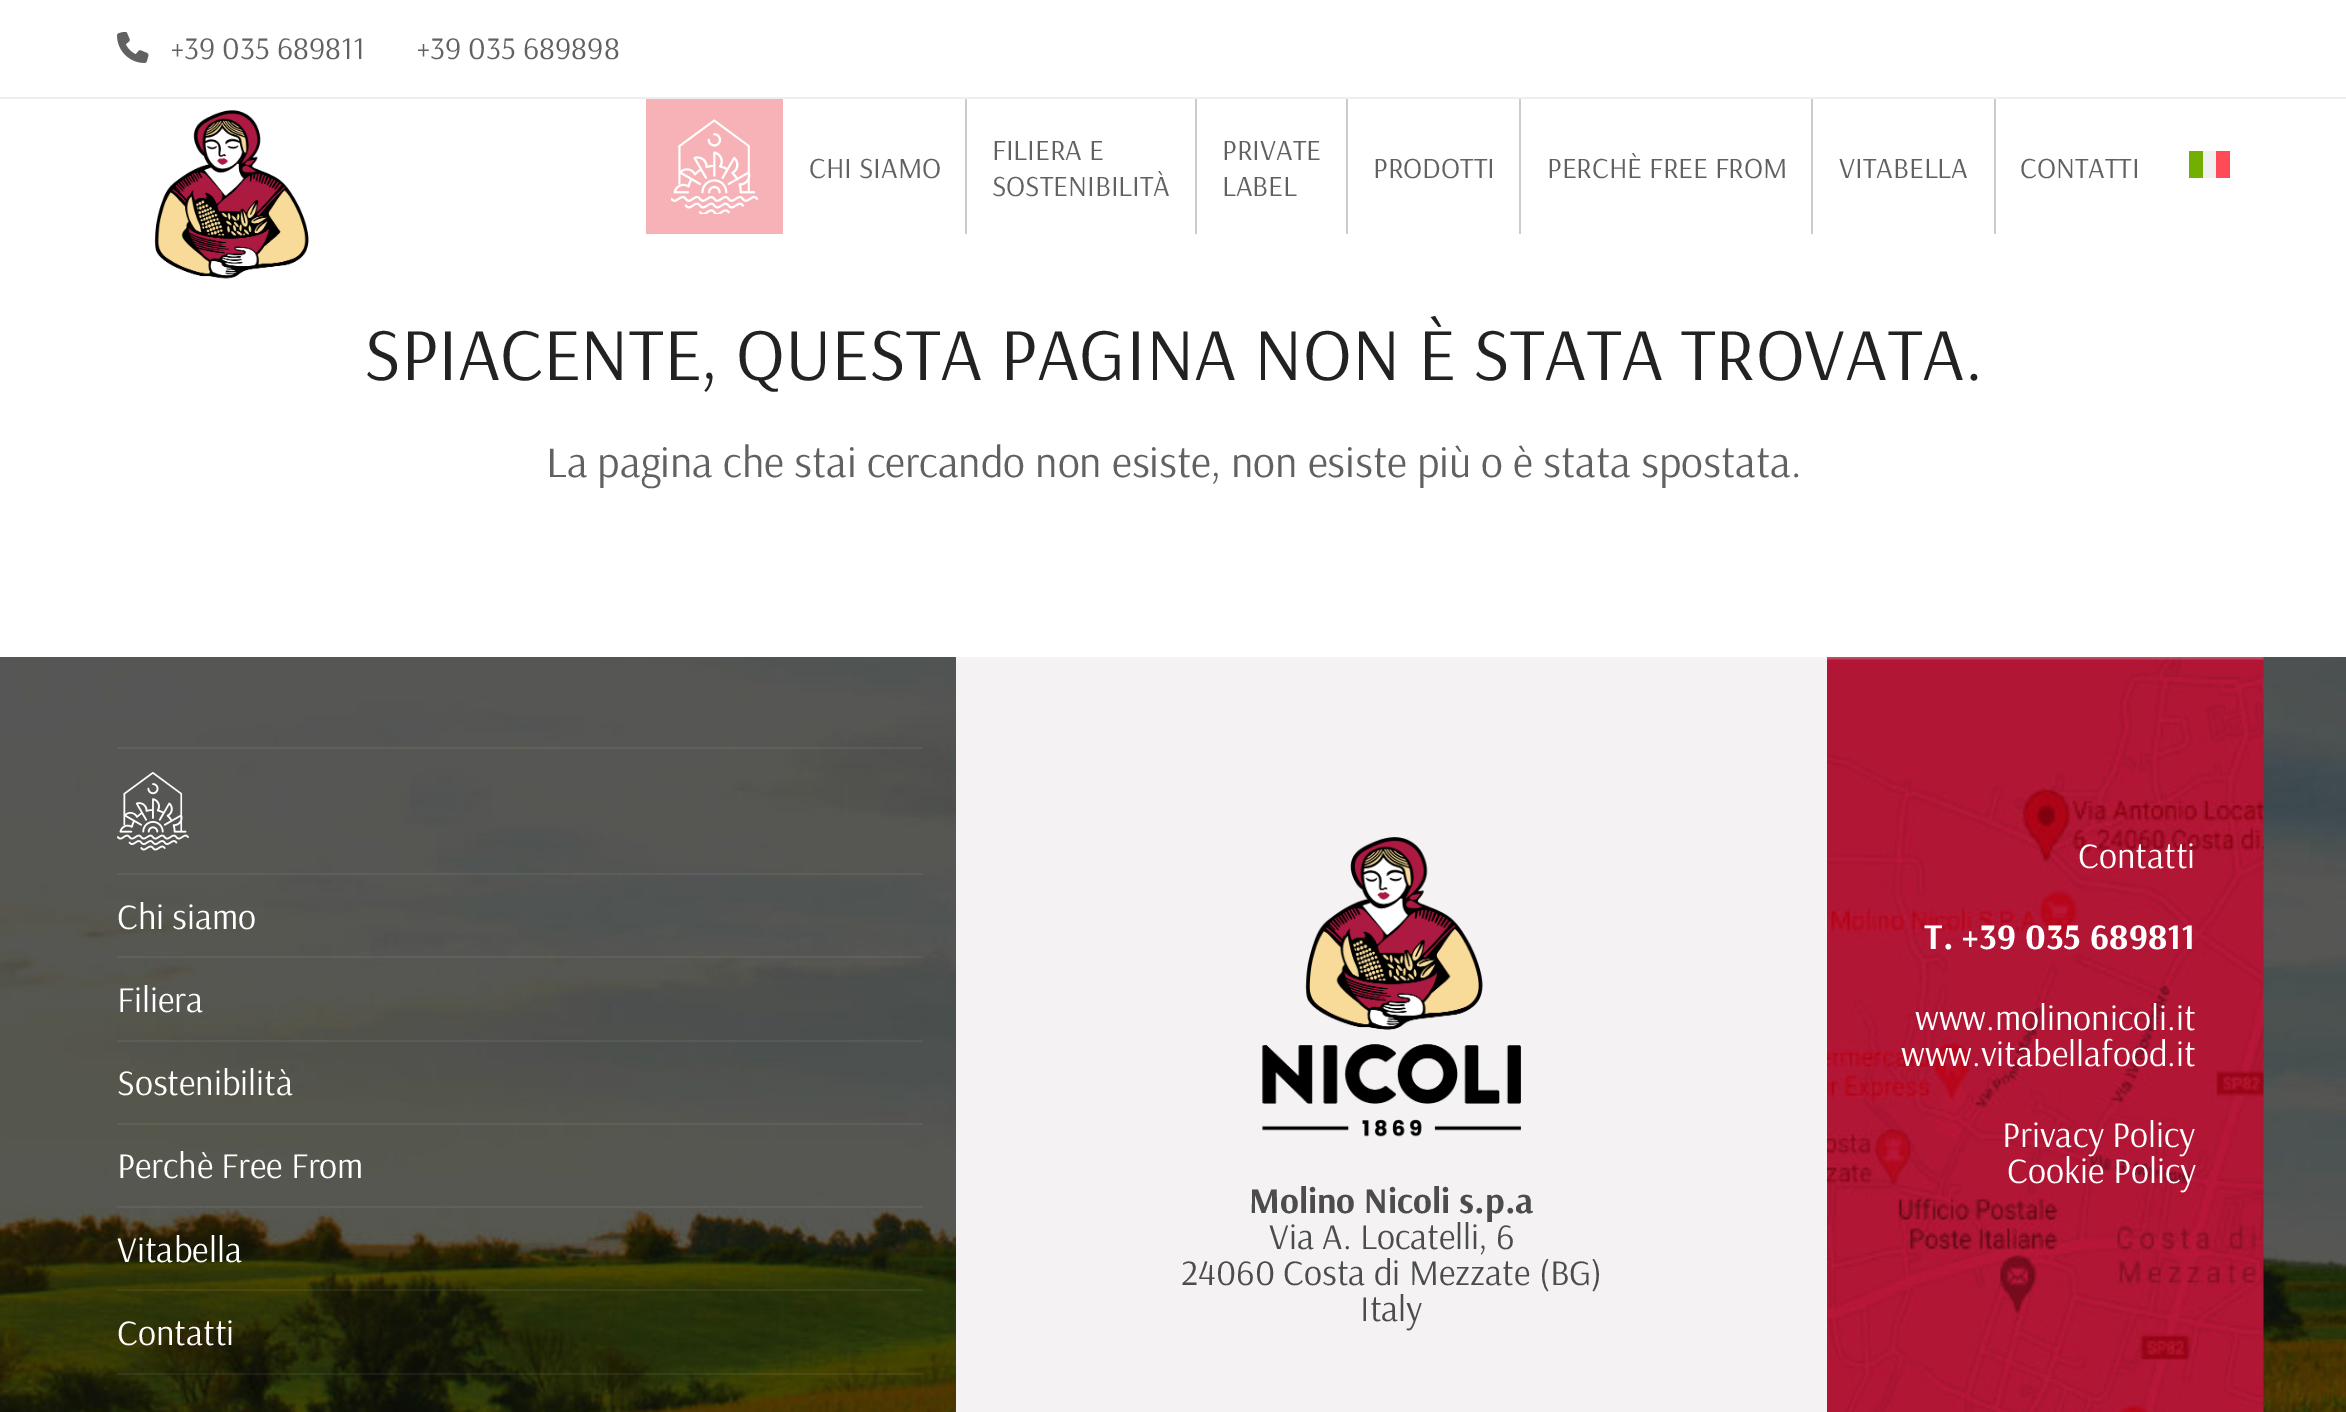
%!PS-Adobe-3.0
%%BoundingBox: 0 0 2346 1412
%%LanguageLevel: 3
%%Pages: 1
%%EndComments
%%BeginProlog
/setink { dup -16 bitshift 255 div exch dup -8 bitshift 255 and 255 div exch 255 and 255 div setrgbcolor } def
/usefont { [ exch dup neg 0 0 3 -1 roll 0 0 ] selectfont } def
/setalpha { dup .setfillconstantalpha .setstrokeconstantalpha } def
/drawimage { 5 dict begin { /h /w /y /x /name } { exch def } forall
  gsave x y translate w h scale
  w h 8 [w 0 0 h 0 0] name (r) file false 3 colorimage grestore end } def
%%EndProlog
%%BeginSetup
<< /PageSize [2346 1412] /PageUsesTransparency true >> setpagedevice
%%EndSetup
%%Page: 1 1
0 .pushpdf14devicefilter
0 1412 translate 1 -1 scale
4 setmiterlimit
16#FFFFFF setink
0 0 2346 1412 rectfill
16#EEEEEE setink
0 97 2346 2 rectfill
(img1.raw) 117 32 32 31 drawimage
/Arsenal-Regular 31.5 usefont
16#616161 setink
171 59 moveto (+39 035 689811) show
417 59 moveto (+39 035 689898) show
(img2.raw) 154 110 155 169 drawimage
16#F6B2B6 setink
646 99 137 135 rectfill
(img3.raw) 671 119 87 95 drawimage
16#CCCCCC setink
965 99 2 135 rectfill
/Arsenal-Regular 29.25 usefont
16#616161 setink
809 178 moveto (CHI SIAMO) show
16#CCCCCC setink
1195 99 2 135 rectfill
16#616161 setink
992 160 moveto (FILIERA E) show
992 196 moveto (SOSTENIBILITÀ) show
16#CCCCCC setink
1346 99 2 135 rectfill
16#616161 setink
1222 160 moveto (PRIVATE) show
1222 196 moveto (LABEL) show
16#CCCCCC setink
1519 99 2 135 rectfill
16#616161 setink
1373 178 moveto (PRODOTTI) show
16#CCCCCC setink
1811 99 2 135 rectfill
16#616161 setink
1547 178 moveto (PERCHÈ FREE FROM) show
16#CCCCCC setink
1994 99 2 135 rectfill
16#616161 setink
1839 178 moveto (VITABELLA) show
2020 178 moveto (CONTATTI) show
[
    [2189 151 14 27 16#73AF00]
    [2203 151 13 27 16#F0F0F0]
    [2216 151 14 27 16#FF4B55]
] { aload pop setink rectfill } forall
/Arsenal-Regular 74.75 usefont
16#222222 setink
364 380 moveto (SPIACENTE, QUESTA PAGINA NON È STATA TROVATA.) show
/Arsenal-Regular 43.6 usefont
16#616161 setink
546 477 moveto (La pagina che stai cercando non esiste, non esiste più o è stata spostata.) show
(img4.raw) 0 657 2346 755 drawimage
0.06 setalpha
16#FFFFFF setink
117 747 806 2 rectfill
117 873 806 2 rectfill
1 setalpha
(img5.raw) 117 772 72 79 drawimage
0.06 setalpha
117 956 806 2 rectfill
/Arsenal-Regular 36 usefont
1 setalpha
117 929 moveto (Chi siamo) show
0.06 setalpha
117 1040 806 2 rectfill
1 setalpha
117 1012 moveto (Filiera) show
0.06 setalpha
117 1123 806 2 rectfill
1 setalpha
117 1095 moveto (Sostenibilità) show
0.06 setalpha
117 1206 806 2 rectfill
1 setalpha
117 1178 moveto (Perchè Free From) show
0.06 setalpha
117 1289 806 2 rectfill
1 setalpha
117 1262 moveto (Vitabella) show
0.06 setalpha
117 1373 806 2 rectfill
1 setalpha
117 1345 moveto (Contatti) show
16#F4F2F2 setink
956 657 871 755 rectfill
(img6.raw) 1262 837 259 300 drawimage
/Arsenal-Bold 36 usefont
16#4C4C4C setink
1249 1213 moveto (Molino Nicoli s.p.a) show
/Arsenal-Regular 36 usefont
[
    [(Via A. Locatelli, 6) 1269 1249]
    [(24060 Costa di Mezzate \(BG\)) 1181 1285]
    [(Italy) 1360 1321]
] { aload pop moveto show } forall
(img7.raw) 1827 657 437 755 drawimage
16#FFFFFF setink
2078 868 moveto (Contatti) show
/Arsenal-Bold 36 usefont
1924 949 moveto (T. +39 035 689811) show
/Arsenal-Regular 36 usefont
[
    [(www.molinonicoli.it) 1915 1030]
    [(www.vitabellafood.it) 1901 1066]
    [(Privacy Policy) 2002 1147]
    [(Cookie Policy) 2007 1183]
] { aload pop moveto show } forall
.poppdf14devicefilter showpage
%%EOF
